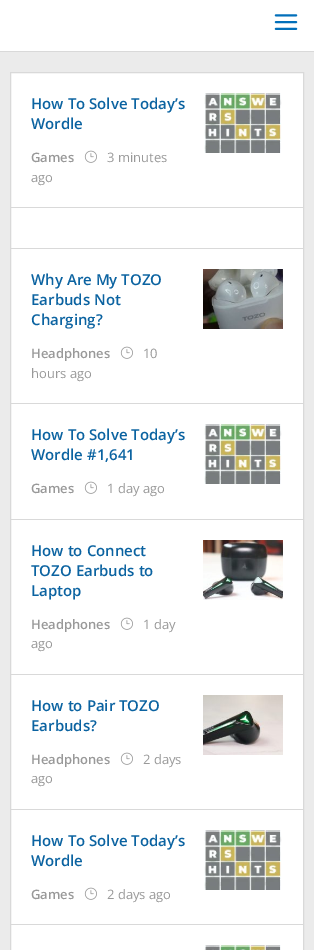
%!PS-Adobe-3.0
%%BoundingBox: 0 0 314 950
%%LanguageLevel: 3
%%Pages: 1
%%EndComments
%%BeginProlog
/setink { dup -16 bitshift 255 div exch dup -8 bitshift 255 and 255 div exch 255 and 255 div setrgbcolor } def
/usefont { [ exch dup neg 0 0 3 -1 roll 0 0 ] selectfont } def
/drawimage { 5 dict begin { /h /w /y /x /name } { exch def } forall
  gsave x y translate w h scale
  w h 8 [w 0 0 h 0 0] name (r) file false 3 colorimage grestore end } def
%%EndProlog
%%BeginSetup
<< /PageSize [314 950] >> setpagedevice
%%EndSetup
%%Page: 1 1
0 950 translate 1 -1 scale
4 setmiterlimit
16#EBEBEB setink
0 0 314 950 rectfill
16#FFFFFF setink
0 0 314 51 rectfill
16#D9D9D9 setink
0 51 314 1 rectfill
(img1.raw) 274 14 24 16 drawimage
16#FFFFFF setink
10.5 72.5 moveto 303.5 72.5 lineto 303.5 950.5 lineto 10.5 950.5 lineto closepath gsave fill grestore
16#D9D9D9 setink
stroke
11 207 292 1 rectfill
/OpenSans-SemiBold 15 usefont
16#0B63A1 setink
31 109 moveto (How To Solve Today’s) show
31 129 moveto (Wordle) show
/OpenSans-SemiBold 13 usefont
16#999999 setink
31 162 moveto (Games) show
(img2.raw) 84 150 13 13 drawimage
/OpenSans-Regular 13 usefont
107 162 moveto (3 minutes) show
31 182 moveto (ago) show
(img3.raw) 204 93 78 60 drawimage
16#D9D9D9 setink
11 248 292 1 rectfill
11 403 292 1 rectfill
/OpenSans-SemiBold 15 usefont
16#0B63A1 setink
[
    [(Why Are My TOZO) 31 285]
    [(Earbuds Not) 31 305]
    [(Charging?) 31 325]
] { aload pop moveto show } forall
/OpenSans-SemiBold 13 usefont
16#999999 setink
31 358 moveto (Headphones) show
(img2.raw) 120 346 13 13 drawimage
/OpenSans-Regular 13 usefont
143 358 moveto (10) show
31 378 moveto (hours ago) show
(img4.raw) 203 269 80 60 drawimage
16#D9D9D9 setink
11 519 292 1 rectfill
/OpenSans-SemiBold 15 usefont
16#0B63A1 setink
31 440 moveto (How To Solve Today’s) show
31 460 moveto (Wordle #1,641) show
/OpenSans-SemiBold 13 usefont
16#999999 setink
31 493 moveto (Games) show
(img2.raw) 84 481 13 13 drawimage
/OpenSans-Regular 13 usefont
107 493 moveto (1 day ago) show
(img3.raw) 204 424 78 60 drawimage
16#D9D9D9 setink
11 674 292 1 rectfill
/OpenSans-SemiBold 15 usefont
16#0B63A1 setink
[
    [(How to Connect) 31 556]
    [(TOZO Earbuds to) 31 576]
    [(Laptop) 31 596]
] { aload pop moveto show } forall
/OpenSans-SemiBold 13 usefont
16#999999 setink
31 629 moveto (Headphones) show
(img2.raw) 120 617 13 13 drawimage
/OpenSans-Regular 13 usefont
143 629 moveto (1 day) show
31 648 moveto (ago) show
(img5.raw) 203 540 80 60 drawimage
16#D9D9D9 setink
11 809 292 1 rectfill
/OpenSans-SemiBold 15 usefont
16#0B63A1 setink
31 711 moveto (How to Pair TOZO) show
31 731 moveto (Earbuds?) show
/OpenSans-SemiBold 13 usefont
16#999999 setink
31 764 moveto (Headphones) show
(img2.raw) 120 752 13 13 drawimage
/OpenSans-Regular 13 usefont
143 764 moveto (2 days) show
31 783 moveto (ago) show
(img6.raw) 203 695 80 60 drawimage
16#D9D9D9 setink
11 924 292 1 rectfill
/OpenSans-SemiBold 15 usefont
16#0B63A1 setink
31 846 moveto (How To Solve Today’s) show
31 866 moveto (Wordle) show
/OpenSans-SemiBold 13 usefont
16#999999 setink
31 899 moveto (Games) show
(img2.raw) 84 887 13 13 drawimage
/OpenSans-Regular 13 usefont
107 899 moveto (2 days ago) show
(img3.raw) 204 830 78 60 drawimage
(img7.raw) 204 945 77 5 drawimage
showpage
%%EOF
